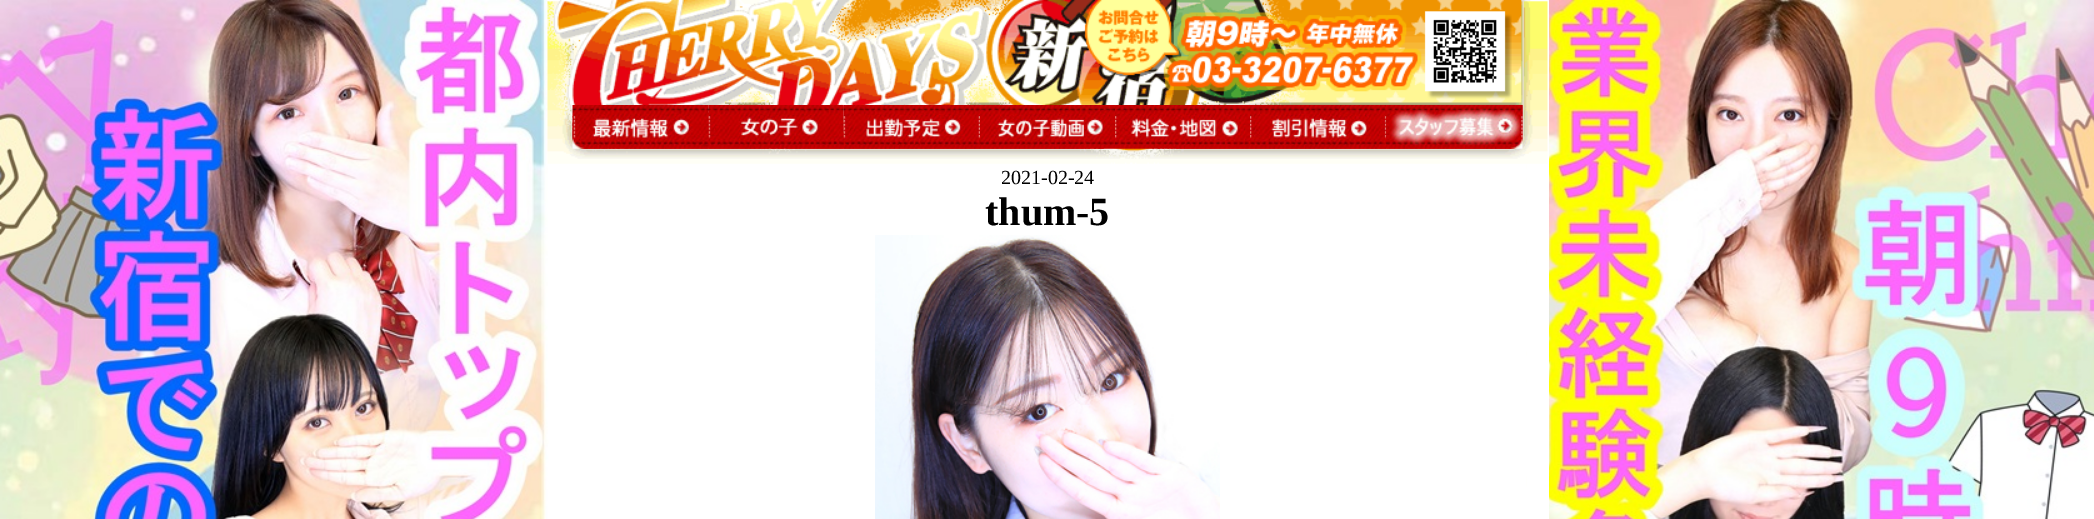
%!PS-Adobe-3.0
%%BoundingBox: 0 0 2094 519
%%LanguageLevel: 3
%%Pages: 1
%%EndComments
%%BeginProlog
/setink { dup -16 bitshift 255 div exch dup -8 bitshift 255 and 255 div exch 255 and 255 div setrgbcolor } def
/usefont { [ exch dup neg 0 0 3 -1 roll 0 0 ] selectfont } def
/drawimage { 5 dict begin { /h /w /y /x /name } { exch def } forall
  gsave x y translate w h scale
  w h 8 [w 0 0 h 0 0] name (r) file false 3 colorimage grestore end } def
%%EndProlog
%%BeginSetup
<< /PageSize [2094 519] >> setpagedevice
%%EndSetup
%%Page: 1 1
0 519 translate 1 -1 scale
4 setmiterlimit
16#FFFFFF setink
0 0 2094 519 rectfill
(img1.raw) 0 0 2094 519 drawimage
1527 0 22 519 rectfill
(img2.raw) 547 0 1001 164 drawimage
(img3.raw) 1084 0 428 99 drawimage
(img4.raw) 572 105 137 44 drawimage
(img5.raw) 708 105 136 44 drawimage
(img6.raw) 843 105 137 44 drawimage
(img7.raw) 980 105 135 44 drawimage
(img8.raw) 1115 105 135 44 drawimage
(img9.raw) 1250 105 137 44 drawimage
(img10.raw) 1386 105 137 44 drawimage
/LiberationSerif-Regular 20 usefont
16#000000 setink
1001 184 moveto (2021-02-24) show
/LiberationSerif-Bold 40 usefont
985 225 moveto (thum-5) show
(img11.raw) 875 235 345 284 drawimage
showpage
%%EOF
